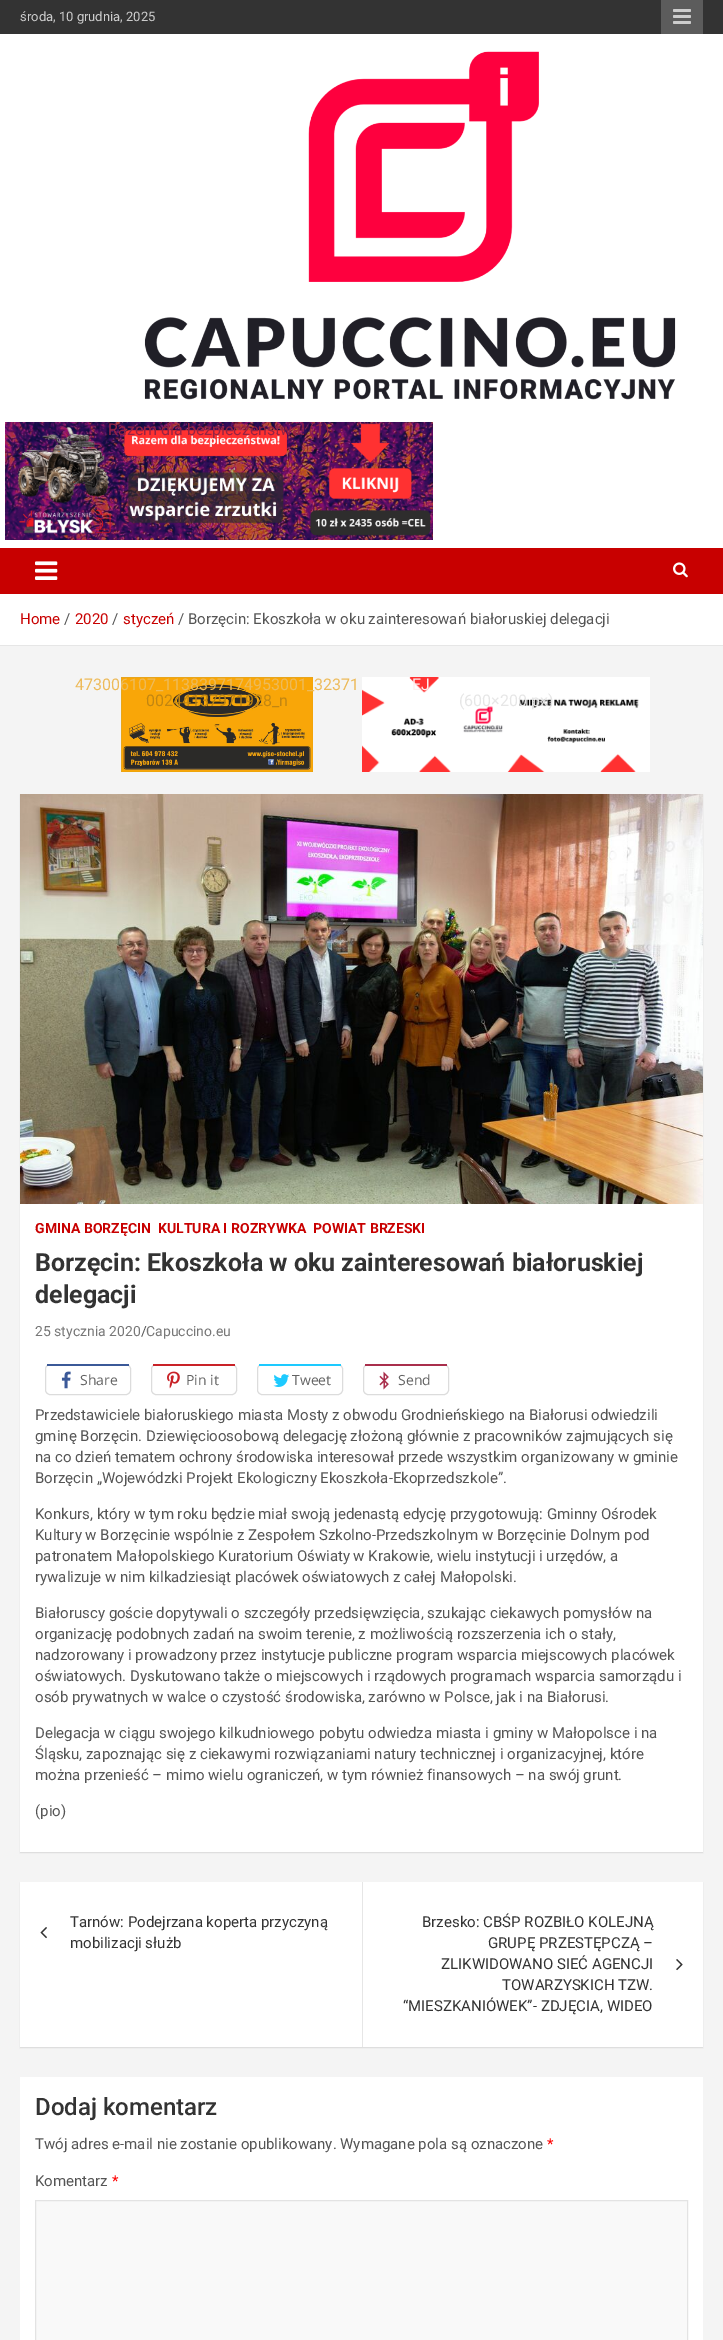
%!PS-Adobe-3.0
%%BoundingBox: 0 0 723 2340
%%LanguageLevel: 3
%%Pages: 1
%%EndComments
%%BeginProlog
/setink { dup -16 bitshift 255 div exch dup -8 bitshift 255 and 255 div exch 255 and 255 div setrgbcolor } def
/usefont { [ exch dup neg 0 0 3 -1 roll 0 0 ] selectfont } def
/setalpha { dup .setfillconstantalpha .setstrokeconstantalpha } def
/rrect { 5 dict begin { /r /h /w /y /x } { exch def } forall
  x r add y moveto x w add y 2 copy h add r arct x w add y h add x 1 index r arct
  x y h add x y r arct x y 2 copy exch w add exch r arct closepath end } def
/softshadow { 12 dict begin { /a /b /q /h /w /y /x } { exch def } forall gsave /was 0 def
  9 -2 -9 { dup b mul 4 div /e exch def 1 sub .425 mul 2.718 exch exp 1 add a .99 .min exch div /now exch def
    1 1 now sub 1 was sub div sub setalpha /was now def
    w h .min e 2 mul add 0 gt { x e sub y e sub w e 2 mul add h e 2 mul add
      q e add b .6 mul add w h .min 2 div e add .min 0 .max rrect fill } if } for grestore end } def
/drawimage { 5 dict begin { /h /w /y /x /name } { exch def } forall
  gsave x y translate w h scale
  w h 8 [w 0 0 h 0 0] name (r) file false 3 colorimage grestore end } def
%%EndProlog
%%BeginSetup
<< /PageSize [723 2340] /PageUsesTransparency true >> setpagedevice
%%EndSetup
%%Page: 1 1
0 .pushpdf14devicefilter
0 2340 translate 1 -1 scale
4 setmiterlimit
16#F4F4F4 setink
0 0 723 2340 rectfill
16#333333 setink
0 0 723 34 rectfill
/Roboto-Regular 13 usefont
16#CCCCCC setink
20 21 moveto (środa, 10 grudnia, 2025) show
16#5C5C5C setink
661 0 42 34 rectfill
(img1.raw) 673 9 18 15 drawimage
16#FFFFFF setink
0 34 723 514 rectfill
(img2.raw) 144 51 532 349 drawimage
(img3.raw) 5 422 428 118 drawimage
/Roboto-Regular 16 usefont
16#962343 setink
108 435 moveto (Razem dla bezpieczeństwa! \(1\)) show
16#C80000 setink
0 548 723 46 rectfill
(img4.raw) 35 561 23 19 drawimage
(img5.raw) 673 562 15 16 drawimage
16#FFFFFF setink
0 594 723 51 rectfill
16#E6E6E6 setink
0 645 723 1 rectfill
/Roboto-Regular 15 usefont
16#C80000 setink
20 624 moveto (Home) show
16#555555 setink
64 624 moveto (/) show
16#C80000 setink
75 624 moveto (2020) show
16#555555 setink
112 624 moveto (/) show
16#C80000 setink
123 624 moveto (styczeń) show
16#555555 setink
178 624 moveto (/ Borzęcin: Ekoszkoła w oku zainteresowań białoruskiej delegacji) show
(img6.raw) 121 677 192 95 drawimage
/Roboto-Regular 16 usefont
16#EDBA59 setink
75 690 moveto (473006107_1138397174953001_32371) show
16#C28611 setink
146 706 moveto (00244137971928_n) show
(img7.raw) 362 677 288 95 drawimage
16#FFEFEF setink
412 690 moveto (EJ) show
16#E6E6E6 setink
459 706 moveto (\(600×200 px\)) show
16#000000 setink
20 795 683 1058 0 0.5 0.1 softshadow
16#FFFFFF setink
20 1204 683 648 rectfill
(img8.raw) 20 794 683 410 drawimage
/Roboto-Bold 14 usefont
16#C80000 setink
[
    [(GMINA BORZĘCIN) 35 1233]
    [(KULTURA I ROZRYWKA) 158 1233]
    [(POWIAT BRZESKI) 313 1233]
] { aload pop moveto show } forall
/Roboto-Bold 25 usefont
16#333333 setink
35 1271 moveto (Borzęcin: Ekoszkoła w oku zainteresowań białoruskiej) show
35 1303 moveto (delegacji) show
/Roboto-Regular 14 usefont
16#777777 setink
35 1336 moveto (25 stycznia 2020) show
16#555555 setink
141 1336 moveto (/) show
16#777777 setink
146 1336 moveto (Capuccino.eu) show
16#DCDCDC setink
45.5 1364.5 85 30 4.5 rrect stroke
16#3B5998 setink
47 1364 82 2 rectfill
(img9.raw) 61 1371 10 18 drawimage
/OpenSans-Regular 14 usefont
16#636363 setink
80 1385 moveto (Share) show
16#DCDCDC setink
151.5 1364.5 85 30 4.5 rrect stroke
16#C92228 setink
153 1364 82 2 rectfill
(img10.raw) 167 1371 13 18 drawimage
16#636363 setink
186 1385 moveto (Pin it) show
16#DCDCDC setink
257.5 1364.5 85 30 4.5 rrect stroke
16#1DCAFF setink
259 1364 82 2 rectfill
(img11.raw) 273 1374 17 13 drawimage
16#636363 setink
292 1385 moveto (Tweet) show
16#DCDCDC setink
363.5 1364.5 85 30 4.5 rrect stroke
16#A92F4C setink
365 1364 82 2 rectfill
(img12.raw) 379 1371 10 19 drawimage
16#636363 setink
398 1385 moveto (Send) show
/Roboto-Regular 15 usefont
16#555555 setink
[
    [(Przedstawiciele białoruskiego miasta Mosty z obwodu Grodnieńskiego na Białorusi odwiedzili) 35 1420]
    [(gminę Borzęcin. Dziewięcioosobową delegację złożoną głównie z pracowników zajmujących się) 35 1441]
    [(na co dzień tematem ochrony środowiska interesował przede wszystkim organizowany w gminie) 35 1462]
    [(Borzęcin „Wojewódzki Projekt Ekologiczny Ekoszkoła-Ekoprzedszkole”.) 35 1483]
    [(Konkurs, który w tym roku będzie miał swoją jedenastą edycję przygotowują: Gminny Ośrodek) 35 1519]
    [(Kultury w Borzęcinie wspólnie z Zespołem Szkolno-Przedszkolnym w Borzęcinie Dolnym pod) 35 1540]
    [(patronatem Małopolskiego Kuratorium Oświaty w Krakowie, wielu instytucji i urzędów, a) 35 1561]
    [(rywalizuje w nim kilkadziesiąt placówek oświatowych z całej Małopolski.) 35 1582]
    [(Białoruscy goście dopytywali o szczegóły przedsięwzięcia, szukając ciekawych pomysłów na) 35 1618]
    [(organizację podobnych zadań na swoim terenie, z możliwością rozszerzenia ich o stały,) 35 1639]
    [(nadzorowany i prowadzony przez instytucje publiczne program wsparcia miejscowych placówek) 35 1660]
    [(oświatowych. Dyskutowano także o miejscowych i rządowych programach wsparcia samorządu i) 35 1681]
    [(osób prywatnych w walce o czystość środowiska, zarówno w Polsce, jak i na Białorusi.) 35 1702]
    [(Delegacja w ciągu swojego kilkudniowego pobytu odwiedza miasta i gminy w Małopolsce i na) 35 1738]
    [(Śląsku, zapoznając się z ciekawymi rozwiązaniami natury technicznej i organizacyjnej, które) 35 1759]
    [(można przenieść – mimo wielu ograniczeń, w tym również finansowych – na swój grunt.) 35 1780]
    [(\(pio\)) 35 1816]
] { aload pop moveto show } forall
16#000000 setink
20 1883 683 165 0 0.5 0.1 softshadow
16#FFFFFF setink
20 1882 683 165 rectfill
16#333333 setink
70 1927 moveto (Tarnów: Podejrzana koperta przyczyną) show
(img13.raw) 40 1927 7 12 drawimage
70 1948 moveto (mobilizacji służb) show
16#E6E6E6 setink
362 1882 1 165 rectfill
16#333333 setink
[
    [(Brzesko: CBŚP ROZBIŁO KOLEJNĄ) 422 1927]
    [(GRUPĘ PRZESTĘPCZĄ –) 488 1948]
    [(ZLIKWIDOWANO SIEĆ AGENCJI) 441 1969]
] { aload pop moveto show } forall
(img14.raw) 676 1959 7 12 drawimage
502 1990 moveto (TOWARZYSKICH TZW.) show
403 2011 moveto (“MIESZKANIÓWEK”- ZDJĘCIA, WIDEO) show
16#FFFFFF setink
20 2077 683 263 rectfill
/Roboto-Medium 24 usefont
16#333333 setink
35 2115 moveto (Dodaj komentarz) show
/Roboto-Regular 15 usefont
16#555555 setink
35 2149 moveto (Twój adres e-mail nie zostanie opublikowany. Wymagane pola są oznaczone) show
16#FF0000 setink
547 2149 moveto (*) show
16#555555 setink
35 2186 moveto (Komentarz) show
16#FF0000 setink
112 2186 moveto (*) show
16#F9F9F9 setink
35.5 2200.5 moveto 687.5 2200.5 lineto 687.5 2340.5 lineto 35.5 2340.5 lineto closepath gsave fill grestore
16#E3E3E3 setink
stroke
.poppdf14devicefilter showpage
%%EOF
